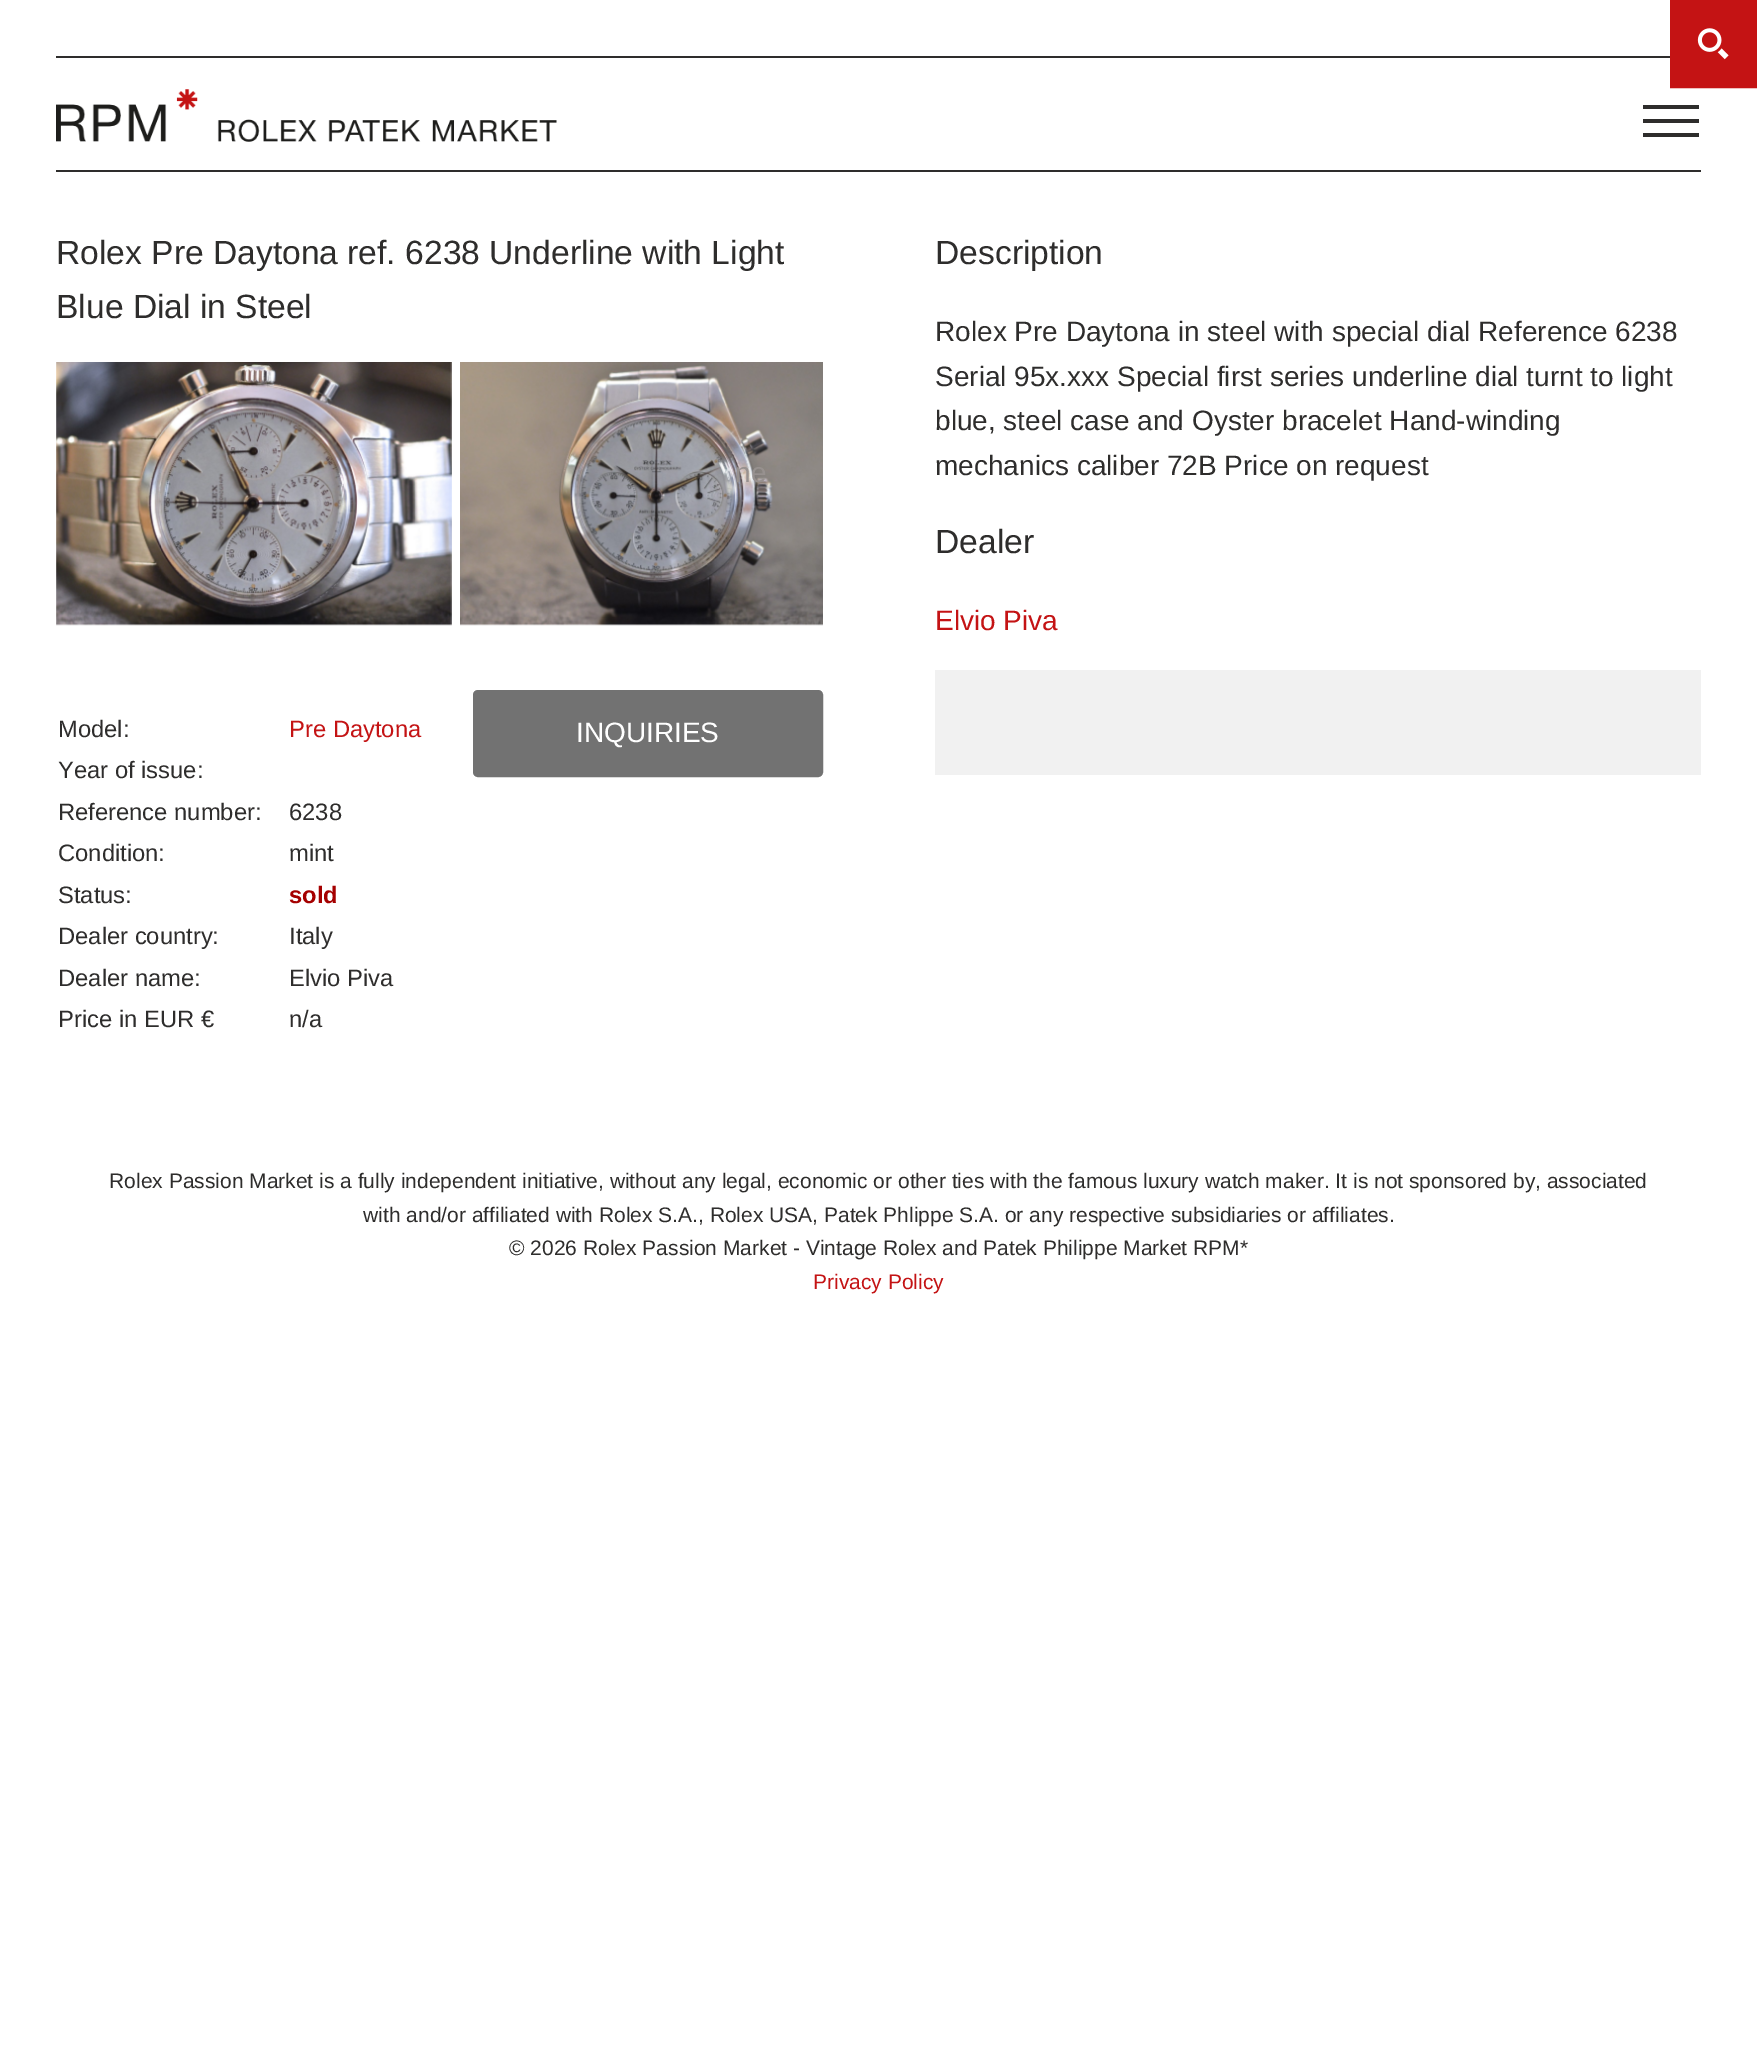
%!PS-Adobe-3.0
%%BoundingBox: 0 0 1757 2072
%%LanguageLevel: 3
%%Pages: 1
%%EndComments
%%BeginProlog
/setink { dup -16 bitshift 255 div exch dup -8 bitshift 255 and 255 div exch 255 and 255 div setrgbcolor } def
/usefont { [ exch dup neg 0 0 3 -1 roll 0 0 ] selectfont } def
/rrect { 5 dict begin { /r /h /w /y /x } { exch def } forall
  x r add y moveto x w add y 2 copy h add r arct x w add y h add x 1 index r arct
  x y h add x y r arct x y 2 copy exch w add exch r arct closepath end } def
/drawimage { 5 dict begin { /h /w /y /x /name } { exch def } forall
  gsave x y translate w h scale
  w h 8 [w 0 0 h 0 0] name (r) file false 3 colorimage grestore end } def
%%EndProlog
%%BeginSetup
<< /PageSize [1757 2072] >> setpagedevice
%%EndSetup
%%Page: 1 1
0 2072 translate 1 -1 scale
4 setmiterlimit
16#FFFFFF setink
0 0 1757 2072 rectfill
16#C41314 setink
2 setlinewidth
1671 1 85 86 rectstroke
1672 2 83 84 rectfill
(img1.raw) 1697 28 32 32 drawimage
16#2E2D2C setink
56 56 1614 2 rectfill
56 170 1645 2 rectfill
(img2.raw) 56 89 501 53 drawimage
[
    [1643 105 56 4 16#2E2D2C]
    [1643 119 56 4 16#2E2D2C]
    [1643 133 56 4 16#2E2D2C]
] { aload pop setink rectfill } forall
/LiberationSans-Regular 33.6 usefont
56 264 moveto (Rolex Pre Daytona ref. 6238 Underline with Light) show
56 318 moveto (Blue Dial in Steel) show
(img3.raw) 56 362 396 264 drawimage
(img4.raw) 460 362 363 264 drawimage
/LiberationSans-Regular 28 usefont
16#97918F setink
735 482 moveto (ne) show
/LiberationSans-Regular 23.75 usefont
16#2E2D2C setink
58 737 moveto (Model:) show
16#C41314 setink
289 737 moveto (Pre Daytona) show
16#2E2D2C setink
[
    [(Year of issue:) 58 778]
    [(Reference number:) 58 820]
    [(6238) 289 820]
    [(Condition:) 58 861]
    [(mint) 289 861]
    [(Status:) 58 903]
] { aload pop moveto show } forall
/LiberationSans-Bold 23.75 usefont
16#A50000 setink
289 903 moveto (sold) show
/LiberationSans-Regular 23.75 usefont
16#2E2D2C setink
[
    [(Dealer country:) 58 944]
    [(Italy) 289 944]
    [(Dealer name:) 58 986]
    [(Elvio Piva) 289 986]
    [(Price in EUR €) 58 1027]
    [(n/a) 289 1027]
] { aload pop moveto show } forall
16#727272 setink
475 692 346 83 3 rrect gsave fill grestore
4 setlinewidth
stroke
/LiberationSans-Regular 28 usefont
16#FFFFFF setink
576 742 moveto (INQUIRIES) show
/LiberationSans-Regular 33.6 usefont
16#2E2D2C setink
935 264 moveto (Description) show
/LiberationSans-Regular 28 usefont
[
    [(Rolex Pre Daytona in steel with special dial Reference 6238) 935 341]
    [(Serial 95x.xxx Special first series underline dial turnt to light) 935 386]
    [(blue, steel case and Oyster bracelet Hand-winding) 935 430]
    [(mechanics caliber 72B Price on request) 935 475]
] { aload pop moveto show } forall
/LiberationSans-Regular 33.6 usefont
935 553 moveto (Dealer) show
/LiberationSans-Regular 28 usefont
16#C41314 setink
935 630 moveto (Elvio Piva) show
16#F1F1F1 setink
935 670 766 105 rectfill
/LiberationSans-Regular 21 usefont
16#2E2D2C setink
[
    [(Rolex Passion Market is a fully independent initiative, without any legal, economic or other ties with the famous luxury watch maker. It is not sponsored by, associated) 109 1188]
    [(with and/or affiliated with Rolex S.A., Rolex USA, Patek Phlippe S.A. or any respective subsidiaries or affiliates.) 363 1222]
    [(© 2026 Rolex Passion Market - Vintage Rolex and Patek Philippe Market RPM*) 509 1255]
] { aload pop moveto show } forall
16#C41314 setink
813 1289 moveto (Privacy Policy) show
showpage
%%EOF
